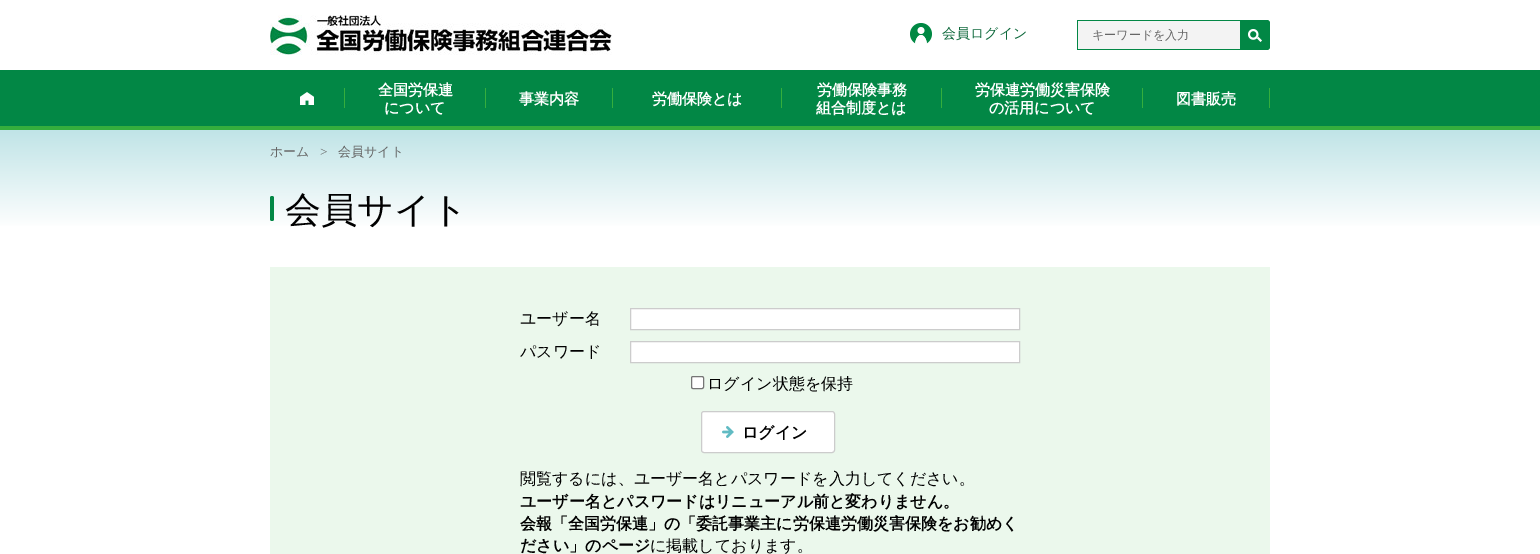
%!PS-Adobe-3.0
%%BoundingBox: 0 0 1540 554
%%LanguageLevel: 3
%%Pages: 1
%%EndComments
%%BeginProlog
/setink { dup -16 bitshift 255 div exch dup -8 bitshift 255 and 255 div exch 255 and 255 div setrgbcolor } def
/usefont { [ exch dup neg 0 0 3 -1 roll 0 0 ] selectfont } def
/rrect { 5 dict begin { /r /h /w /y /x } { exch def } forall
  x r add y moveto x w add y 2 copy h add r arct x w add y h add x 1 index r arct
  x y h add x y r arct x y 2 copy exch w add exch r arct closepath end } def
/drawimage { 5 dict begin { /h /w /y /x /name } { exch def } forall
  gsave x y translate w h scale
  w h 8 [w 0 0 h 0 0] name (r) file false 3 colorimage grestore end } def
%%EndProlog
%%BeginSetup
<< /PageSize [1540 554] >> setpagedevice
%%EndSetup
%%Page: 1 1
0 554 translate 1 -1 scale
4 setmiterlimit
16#FFFFFF setink
0 0 1540 554 rectfill
(img1.raw) 270 15 342 40 drawimage
(img2.raw) 910 23 22 21 drawimage
/WenQuanYiZenHei-Medium 14 usefont
16#0E693C setink
942 38 moveto (会員ログイン) show
16#F3F3F3 setink
1080 20 moveto 1240 20 lineto 1240 50 lineto 1080 50 lineto 1078.5 50 1077 48.5 1077 47 curveto 1077 23 lineto 1077 21.5 1078.5 20 1080 20 curveto closepath fill
gsave
1077 20 193 30 3 rrect clip newpath
[
    [1077 20 163 1 16#028745]
    [1077 49 163 1 16#028745]
    [1077 20 1 30 16#028745]
] { aload pop setink rectfill } forall
grestore
16#028745 setink
1240 20 moveto 1267 20 lineto 1268.5 20 1270 21.5 1270 23 curveto 1270 47 lineto 1270 48.5 1268.5 50 1267 50 curveto 1240 50 lineto closepath fill
(img3.raw) 1248 29 14 13 drawimage
/WenQuanYiZenHei-Medium 12 usefont
16#666666 setink
1092 39 moveto (キーワードを入力) show
16#028745 setink
0 70 1540 56 rectfill
(img4.raw) 300 92 14 13 drawimage
16#35AE3D setink
344 88 1 20 rectfill
/WenQuanYiZenHei-Bold 15 usefont
16#FFFFFF setink
378 95 moveto (全国労保連) show
16#35AE3D setink
485 88 1 20 rectfill
16#FFFFFF setink
384 113 moveto (について) show
519 104 moveto (事業内容) show
16#35AE3D setink
612 88 1 20 rectfill
16#FFFFFF setink
652 104 moveto (労働保険とは) show
16#35AE3D setink
781 88 1 20 rectfill
16#FFFFFF setink
817 95 moveto (労働保険事務) show
16#35AE3D setink
941 88 1 20 rectfill
16#FFFFFF setink
816 113 moveto (組合制度とは) show
975 95 moveto (労保連労働災害保険) show
16#35AE3D setink
1142 88 1 20 rectfill
16#FFFFFF setink
989 113 moveto (の活用について) show
1176 104 moveto (図書販売) show
16#35AE3D setink
1269 88 1 20 rectfill
0 126 1540 4 rectfill
gsave 0 130 moveto 1540 130 lineto 1540 226 lineto 0 226 lineto closepath clip newpath
<< /ShadingType 2 /ColorSpace /DeviceRGB /Coords [770 130 770 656] /Extend [true true] /Function << /FunctionType 3 /Domain [0 1] /Functions [<< /FunctionType 2 /Domain [0 1] /C0 [0.753 0.894 0.906] /C1 [1 1 1] /N 1 >> << /FunctionType 2 /Domain [0 1] /C0 [1 1 1] /C1 [1 1 1] /N 1 >>] /Bounds [0.19] /Encode [0 1 0 1] >> >> shfill grestore
/WenQuanYiZenHei-Medium 13 usefont
16#666666 setink
270 156 moveto (ホーム) show
/LiberationSerif-Regular 13 usefont
320 156 moveto (>) show
/WenQuanYiZenHei-Medium 13 usefont
338 156 moveto (会員サイト) show
16#028745 setink
270 196 4 25 2 rrect fill
/WenQuanYiZenHei-Medium 36 usefont
16#000000 setink
285 222 moveto (会員サイト) show
16#EBF8EC setink
270 267 1000 287 rectfill
/WenQuanYiZenHei-Medium 16 usefont
16#000000 setink
520 324 moveto (ユーザー名) show
16#FFFFFF setink
630.5 308.5 moveto 1019.5 308.5 lineto 1019.5 329.5 lineto 630.5 329.5 lineto closepath gsave fill grestore
16#CCCCCC setink
stroke
16#000000 setink
520 357 moveto (パスワード) show
16#FFFFFF setink
630.5 341.5 moveto 1019.5 341.5 lineto 1019.5 362.5 lineto 630.5 362.5 lineto closepath gsave fill grestore
16#CCCCCC setink
stroke
16#FFFFFF setink
691.5 376.5 12 12 1.5 rrect gsave fill grestore
16#767676 setink
stroke
16#000000 setink
707 389 moveto (ログイン状態を保持) show
16#FFFFFF setink
701.5 411.5 133 41 2.5 rrect gsave fill grestore
16#CCCCCC setink
stroke
(img5.raw) 722 426 12 12 drawimage
/WenQuanYiZenHei-Bold 16 usefont
16#000000 setink
742 438 moveto (ログイン) show
/WenQuanYiZenHei-Medium 16 usefont
520 484 moveto (閲覧するには、ユーザー名とパスワードを入力してください。) show
/WenQuanYiZenHei-Bold 16 usefont
[
    [(ユーザー名とパスワードはリニューアル前と変わりません。) 520 507]
    [(会報「全国労保連」の「委託事業主に労保連労働災害保険をお勧めく) 520 529]
    [(ださい」のページ) 520 551]
] { aload pop moveto show } forall
/WenQuanYiZenHei-Medium 16 usefont
650 551 moveto (に掲載しております。) show
showpage
%%EOF
